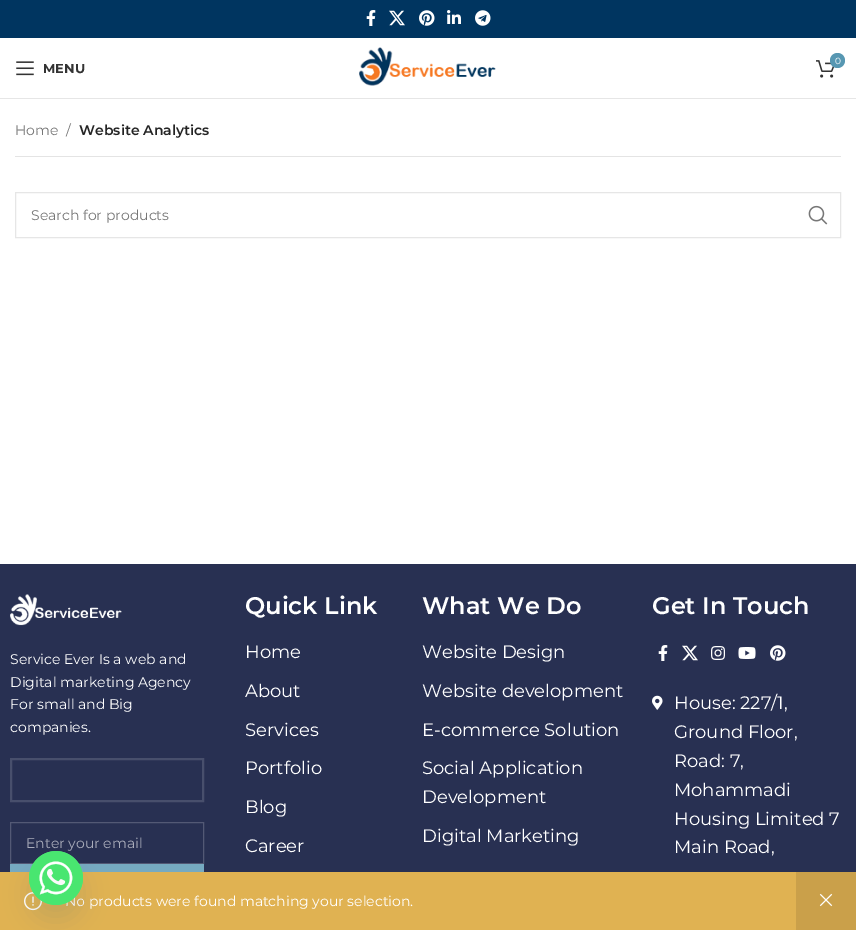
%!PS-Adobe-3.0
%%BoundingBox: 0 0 856 930
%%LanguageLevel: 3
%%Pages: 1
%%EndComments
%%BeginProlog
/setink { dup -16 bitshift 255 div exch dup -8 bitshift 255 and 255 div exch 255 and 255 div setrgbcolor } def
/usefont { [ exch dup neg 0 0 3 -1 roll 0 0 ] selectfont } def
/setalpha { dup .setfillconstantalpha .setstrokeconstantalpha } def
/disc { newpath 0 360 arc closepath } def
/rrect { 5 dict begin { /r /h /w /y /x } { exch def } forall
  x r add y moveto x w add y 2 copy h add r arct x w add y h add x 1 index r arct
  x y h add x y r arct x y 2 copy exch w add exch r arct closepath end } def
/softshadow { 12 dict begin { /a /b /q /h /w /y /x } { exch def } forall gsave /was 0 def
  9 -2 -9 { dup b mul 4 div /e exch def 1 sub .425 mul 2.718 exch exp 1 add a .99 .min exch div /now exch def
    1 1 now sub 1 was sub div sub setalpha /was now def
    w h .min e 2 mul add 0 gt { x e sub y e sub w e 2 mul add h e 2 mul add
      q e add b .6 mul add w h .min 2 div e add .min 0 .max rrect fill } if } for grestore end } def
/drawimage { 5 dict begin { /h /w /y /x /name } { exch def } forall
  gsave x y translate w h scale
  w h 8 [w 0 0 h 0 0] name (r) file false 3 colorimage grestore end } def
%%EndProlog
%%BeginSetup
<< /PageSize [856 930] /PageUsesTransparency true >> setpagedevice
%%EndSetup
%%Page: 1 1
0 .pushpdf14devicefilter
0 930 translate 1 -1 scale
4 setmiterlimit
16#FFFFFF setink
0 0 856 930 rectfill
16#003560 setink
0 0 856 38 rectfill
(img1.raw) 366 10 10 16 drawimage
(img2.raw) 389 10 16 16 drawimage
(img3.raw) 419 10 16 16 drawimage
(img4.raw) 447 10 14 14 drawimage
(img5.raw) 475 10 16 16 drawimage
16#E6E6E6 setink
0 98 856 1 rectfill
(img6.raw) 359 47 137 39 drawimage
(img7.raw) 816 60 19 18 drawimage
16#5797B2 setink
837.5 60.5 7.5 disc fill
/Montserrat-Regular 9 usefont
16#FFFFFF setink
835 64 moveto (0) show
(img8.raw) 16 61 18 15 drawimage
/Montserrat-Bold 13 usefont
16#333333 setink
43 73 moveto (MENU) show
16#E4E4E4 setink
15 156 826 1 rectfill
/Montserrat-Regular 14 usefont
16#767676 setink
15 135 moveto (Home) show
66 135 moveto (/) show
/Montserrat-SemiBold 14 usefont
16#242424 setink
79 135 moveto (Website Analytics) show
16#E6E6E6 setink
15.5 192.5 825 45 rectstroke
/Montserrat-Regular 14 usefont
16#767676 setink
31 220 moveto (Search for products) show
(img9.raw) 808 205 20 20 drawimage
16#E0B252 setink
0 872 796 58 rectfill
(img10.raw) 24 892 18 19 drawimage
16#FFFFFF setink
65 906 moveto (No products were found matching your selection.) show
16#CAA04A setink
796 872 60 58 rectfill
(img11.raw) 819 893 14 14 drawimage
16#283052 setink
0 564 856 308 rectfill
(img12.raw) 10 594 112 32 drawimage
16#FFFFFF setink
[
    [(Service Ever Is a web and) 10 664]
    [(Digital marketing Agency) 10 687]
    [(For small and Big) 10 709]
    [(companies.) 10 732]
] { aload pop moveto show } forall
16#484F6C setink
2 setlinewidth
11 759 192 42 rectstroke
16#535975 setink
1 setlinewidth
10.5 822.5 193 41 rectstroke
16#A9ACBA setink
26 848 moveto (Enter your email) show
16#76AAC1 setink
10 864 194 8 rectfill
/Montserrat-SemiBold 24 usefont
16#FFFFFF setink
245 614 moveto (Quick Link) show
/Montserrat-Regular 18 usefont
[
    [(Home) 245 658]
    [(About) 245 697]
    [(Services) 245 736]
    [(Portfolio) 245 774]
    [(Blog) 245 813]
    [(Career) 245 852]
] { aload pop moveto show } forall
/Montserrat-SemiBold 24 usefont
422 614 moveto (What We Do) show
/Montserrat-Regular 18 usefont
[
    [(Website Design) 422 658]
    [(Website development) 422 697]
    [(E-commerce Solution) 422 736]
    [(Social Application) 422 774]
    [(Development) 422 803]
    [(Digital Marketing) 422 842]
] { aload pop moveto show } forall
/Montserrat-SemiBold 24 usefont
652 614 moveto (Get In Touch) show
(img13.raw) 658 645 10 16 drawimage
(img14.raw) 682 645 16 16 drawimage
(img15.raw) 711 646 14 14 drawimage
(img16.raw) 738 647 18 12 drawimage
(img17.raw) 770 645 16 16 drawimage
(img18.raw) 652 695 11 15 drawimage
/Montserrat-Regular 18 usefont
[
    [(House: 227/1,) 674 709]
    [(Ground Floor,) 674 738]
    [(Road: 7,) 674 767]
    [(Mohammadi) 674 796]
    [(Housing Limited 7) 674 825]
    [(Main Road,) 674 853]
] { aload pop moveto show } forall
16#49687E setink
29 867 54 54 27 12 0.16 softshadow
(img19.raw) 29 851 54 54 drawimage
.poppdf14devicefilter showpage
%%EOF
